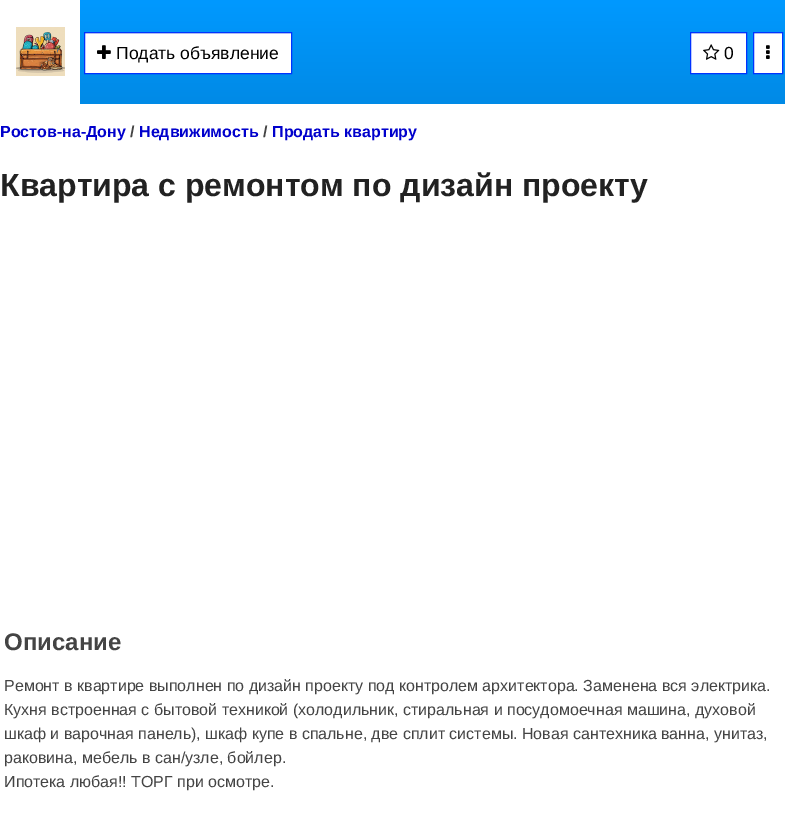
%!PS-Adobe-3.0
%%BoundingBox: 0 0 785 829
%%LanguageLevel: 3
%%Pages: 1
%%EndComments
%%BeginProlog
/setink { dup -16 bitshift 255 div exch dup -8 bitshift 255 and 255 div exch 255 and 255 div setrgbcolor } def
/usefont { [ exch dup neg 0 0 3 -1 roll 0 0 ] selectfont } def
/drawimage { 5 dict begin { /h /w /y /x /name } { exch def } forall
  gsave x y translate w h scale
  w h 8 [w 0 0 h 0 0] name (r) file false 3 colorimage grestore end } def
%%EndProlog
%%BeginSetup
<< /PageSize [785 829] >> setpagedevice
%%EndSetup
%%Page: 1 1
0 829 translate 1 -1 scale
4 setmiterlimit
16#FFFFFF setink
0 0 785 829 rectfill
gsave 80 0 moveto 785 0 lineto 785 104 lineto 80 104 lineto closepath clip newpath
<< /ShadingType 2 /ColorSpace /DeviceRGB /Coords [0 0 0 104] /Extend [true true] /Function << /FunctionType 2 /Domain [0 1] /C0 [0 0.6 1] /C1 [0 0.541 0.902] /N 1 >> >> shfill grestore
(img1.raw) 16 27 49 49 drawimage
85 34 206 39 rectfill
16#ECECEC setink
85 33 206 1 rectfill
16#0033FF setink
84.5 32.5 207 41 rectstroke
(img2.raw) 97 45 14 14 drawimage
/LiberationSans-Regular 17.5 usefont
16#000000 setink
116 59 moveto (Подать объявление) show
16#FFFFFF setink
691 34 55 39 rectfill
16#ECECEC setink
691 33 55 1 rectfill
16#0033FF setink
690.5 32.5 56 41 rectstroke
(img3.raw) 703 44 17 16 drawimage
16#000000 setink
724 59 moveto (0) show
16#FFFFFF setink
754 34 28 39 rectfill
16#ECECEC setink
754 33 28 1 rectfill
16#0033FF setink
753.5 32.5 29 41 rectstroke
(img4.raw) 766 45 4 14 drawimage
/LiberationSans-Bold 16 usefont
16#0000CC setink
0 137 moveto (Ростов-на-Дону) show
16#444444 setink
130 137 moveto (/) show
16#0000CC setink
139 137 moveto (Недвижимость) show
16#444444 setink
263 137 moveto (/) show
16#0000CC setink
272 137 moveto (Продать квартиру) show
/LiberationSans-Bold 32 usefont
16#222222 setink
0 196 moveto (Квартира с ремонтом по дизайн проекту) show
/LiberationSans-Bold 24 usefont
16#444444 setink
4 650 moveto (Описание) show
/LiberationSans-Regular 16 usefont
[
    [(Ремонт в квартире выполнен по дизайн проекту под контролем архитектора. Заменена вся электрика.) 4 691]
    [(Кухня встроенная с бытовой техникой \(холодильник, стиральная и посудомоечная машина, духовой) 4 715]
    [(шкаф и варочная панель\), шкаф купе в спальне, две сплит системы. Новая сантехника ванна, унитаз,) 4 739]
    [(раковина, мебель в сан/узле, бойлер.) 4 763]
    [(Ипотека любая!! ТОРГ при осмотре.) 4 787]
] { aload pop moveto show } forall
showpage
%%EOF
